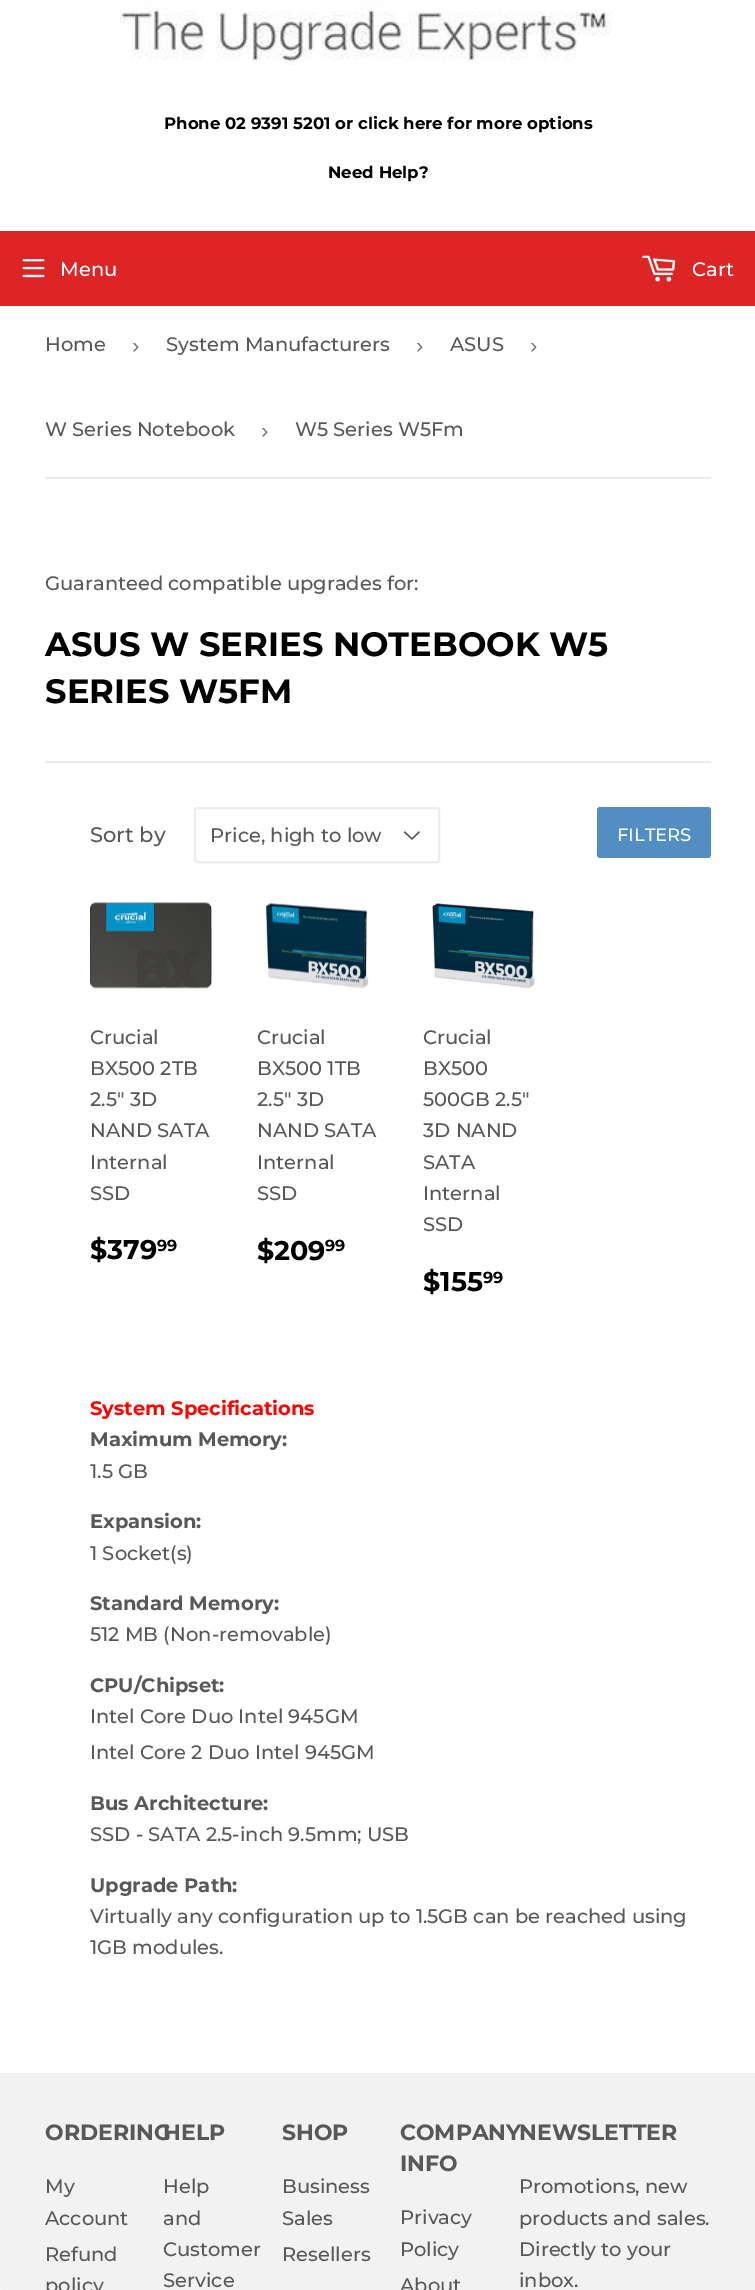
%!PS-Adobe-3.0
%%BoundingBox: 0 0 755 2290
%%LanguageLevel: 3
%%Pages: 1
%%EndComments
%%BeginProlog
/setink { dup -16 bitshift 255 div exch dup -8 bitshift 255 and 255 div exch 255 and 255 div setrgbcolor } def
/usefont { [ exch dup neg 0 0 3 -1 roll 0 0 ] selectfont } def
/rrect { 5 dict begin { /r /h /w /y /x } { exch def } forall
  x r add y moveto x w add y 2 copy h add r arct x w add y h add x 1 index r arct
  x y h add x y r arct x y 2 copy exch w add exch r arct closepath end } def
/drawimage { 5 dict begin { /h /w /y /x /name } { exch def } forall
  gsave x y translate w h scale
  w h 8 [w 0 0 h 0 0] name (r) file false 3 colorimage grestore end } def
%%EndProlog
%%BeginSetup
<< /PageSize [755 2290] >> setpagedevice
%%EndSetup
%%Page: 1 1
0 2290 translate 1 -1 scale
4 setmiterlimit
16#FFFFFF setink
0 0 755 2290 rectfill
(img1.raw) 120 0 492 66 drawimage
/Montserrat-Bold 16.6 usefont
16#000000 setink
164 129 moveto (Phone 02 9391 5201 or click here for more options) show
328 178 moveto (Need Help?) show
16#DD2525 setink
0 231 755 75 rectfill
(img2.raw) 22 259 23 19 drawimage
/Montserrat-Medium 19.5 usefont
16#FFFFFF setink
60 276 moveto (Menu) show
(img3.raw) 642 255 34 27 drawimage
692 276 moveto (Cart) show
16#ECECEC setink
45 477 666 2 rectfill
16#585858 setink
45 351 moveto (Home) show
/LiberationSans-Regular 22 usefont
16#767676 setink
132 353 moveto (›) show
/Montserrat-Medium 19.5 usefont
16#585858 setink
166 351 moveto (System Manufacturers) show
/LiberationSans-Regular 22 usefont
16#767676 setink
416 353 moveto (›) show
/Montserrat-Medium 19.5 usefont
16#585858 setink
450 351 moveto (ASUS) show
/LiberationSans-Regular 22 usefont
16#767676 setink
530 353 moveto (›) show
/Montserrat-Medium 19.5 usefont
16#585858 setink
45 436 moveto (W Series Notebook) show
/LiberationSans-Regular 22 usefont
16#767676 setink
261 438 moveto (›) show
/Montserrat-Medium 19.5 usefont
16#585858 setink
295 436 moveto (W5 Series W5Fm) show
45 590 moveto (Guaranteed compatible upgrades for:) show
/Montserrat-Bold 33.75 usefont
16#000000 setink
45 656 moveto (ASUS W SERIES NOTEBOOK W5) show
45 703 moveto (SERIES W5FM) show
16#ECECEC setink
45 761 666 2 rectfill
/Montserrat-Medium 21 usefont
16#585858 setink
90 842 moveto (Sort by) show
(img4.raw) 403 831 17 9 drawimage
16#ECECEC setink
2 setlinewidth
195 808 244 54 2 rrect stroke
/Montserrat-Medium 19.5 usefont
16#585858 setink
210 842 moveto (Price, high to low) show
16#528EC1 setink
597 807 114 51 3 rrect fill
/Montserrat-Medium 18 usefont
16#FFFFFF setink
617 841 moveto (FILTERS) show
(img5.raw) 90 902 122 87 drawimage
/Montserrat-Medium 19.5 usefont
16#585858 setink
[
    [(Crucial) 90 1044]
    [(BX500 2TB) 90 1075]
    [(2.5" 3D) 90 1106]
    [(NAND SATA) 90 1137]
    [(Internal) 90 1169]
    [(SSD) 90 1200]
] { aload pop moveto show } forall
/Montserrat-Bold 27 usefont
16#000000 setink
90 1259 moveto ($379) show
/Montserrat-Bold 16 usefont
157 1251 moveto (99) show
(img6.raw) 265 903 104 86 drawimage
/Montserrat-Medium 19.5 usefont
16#585858 setink
[
    [(Crucial) 257 1044]
    [(BX500 1TB) 257 1075]
    [(2.5" 3D) 257 1106]
    [(NAND SATA) 257 1137]
    [(Internal) 257 1169]
    [(SSD) 257 1200]
] { aload pop moveto show } forall
/Montserrat-Bold 27 usefont
16#000000 setink
257 1260 moveto ($209) show
/Montserrat-Bold 16 usefont
325 1251 moveto (99) show
(img7.raw) 431 903 104 86 drawimage
/Montserrat-Medium 19.5 usefont
16#585858 setink
[
    [(Crucial) 423 1044]
    [(BX500) 423 1075]
    [(500GB 2.5") 423 1106]
    [(3D NAND) 423 1137]
    [(SATA) 423 1169]
    [(Internal) 423 1200]
    [(SSD) 423 1231]
] { aload pop moveto show } forall
/Montserrat-Bold 27 usefont
16#000000 setink
423 1291 moveto ($155) show
/Montserrat-Bold 16 usefont
483 1283 moveto (99) show
/Montserrat-Bold 19.5 usefont
16#FF0000 setink
90 1415 moveto (System Specifications) show
16#585858 setink
90 1446 moveto (Maximum Memory:) show
/Montserrat-Medium 19.5 usefont
90 1478 moveto (1.5 GB) show
/Montserrat-Bold 19.5 usefont
90 1528 moveto (Expansion:) show
/Montserrat-Medium 19.5 usefont
90 1560 moveto (1 Socket\(s\)) show
/Montserrat-Bold 19.5 usefont
90 1610 moveto (Standard Memory:) show
/Montserrat-Medium 19.5 usefont
90 1641 moveto (512 MB \(Non-removable\)) show
/Montserrat-Bold 19.5 usefont
90 1692 moveto (CPU/Chipset:) show
/Montserrat-Medium 19.5 usefont
90 1723 moveto (Intel Core Duo Intel 945GM) show
90 1759 moveto (Intel Core 2 Duo Intel 945GM) show
/Montserrat-Bold 19.5 usefont
90 1810 moveto (Bus Architecture:) show
/Montserrat-Medium 19.5 usefont
90 1841 moveto (SSD - SATA 2.5-inch 9.5mm; USB) show
/Montserrat-Bold 19.5 usefont
90 1892 moveto (Upgrade Path:) show
/Montserrat-Medium 19.5 usefont
90 1923 moveto (Virtually any configuration up to 1.5GB can be reached using) show
90 1954 moveto (1GB modules.) show
16#F2F2F2 setink
0 2073 755 217 rectfill
16#F5F5F5 setink
0 2288 3 2 rectfill
/Montserrat-Bold 22 usefont
16#585858 setink
45 2140 moveto (ORDERING) show
/Montserrat-Medium 19.5 usefont
[
    [(My) 45 2193]
    [(Account) 45 2225]
    [(Refund) 45 2261]
    [(policy) 45 2292]
] { aload pop moveto show } forall
/Montserrat-Bold 22 usefont
163 2140 moveto (HELP) show
/Montserrat-Medium 19.5 usefont
[
    [(Help) 163 2193]
    [(and) 163 2225]
    [(Customer) 163 2256]
    [(Service) 163 2287]
] { aload pop moveto show } forall
/Montserrat-Bold 22 usefont
282 2140 moveto (SHOP) show
/Montserrat-Medium 19.5 usefont
[
    [(Business) 282 2193]
    [(Sales) 282 2225]
    [(Resellers) 282 2261]
] { aload pop moveto show } forall
/Montserrat-Bold 22 usefont
400 2140 moveto (COMPANY) show
400 2171 moveto (INFO) show
/Montserrat-Medium 19.5 usefont
[
    [(Privacy) 400 2224]
    [(Policy) 400 2256]
    [(About) 400 2292]
] { aload pop moveto show } forall
/Montserrat-Bold 22 usefont
519 2140 moveto (NEWSLETTER) show
/Montserrat-Medium 19.5 usefont
[
    [(Promotions, new) 519 2193]
    [(products and sales.) 519 2225]
    [(Directly to your) 519 2256]
    [(inbox.) 519 2287]
] { aload pop moveto show } forall
showpage
%%EOF
